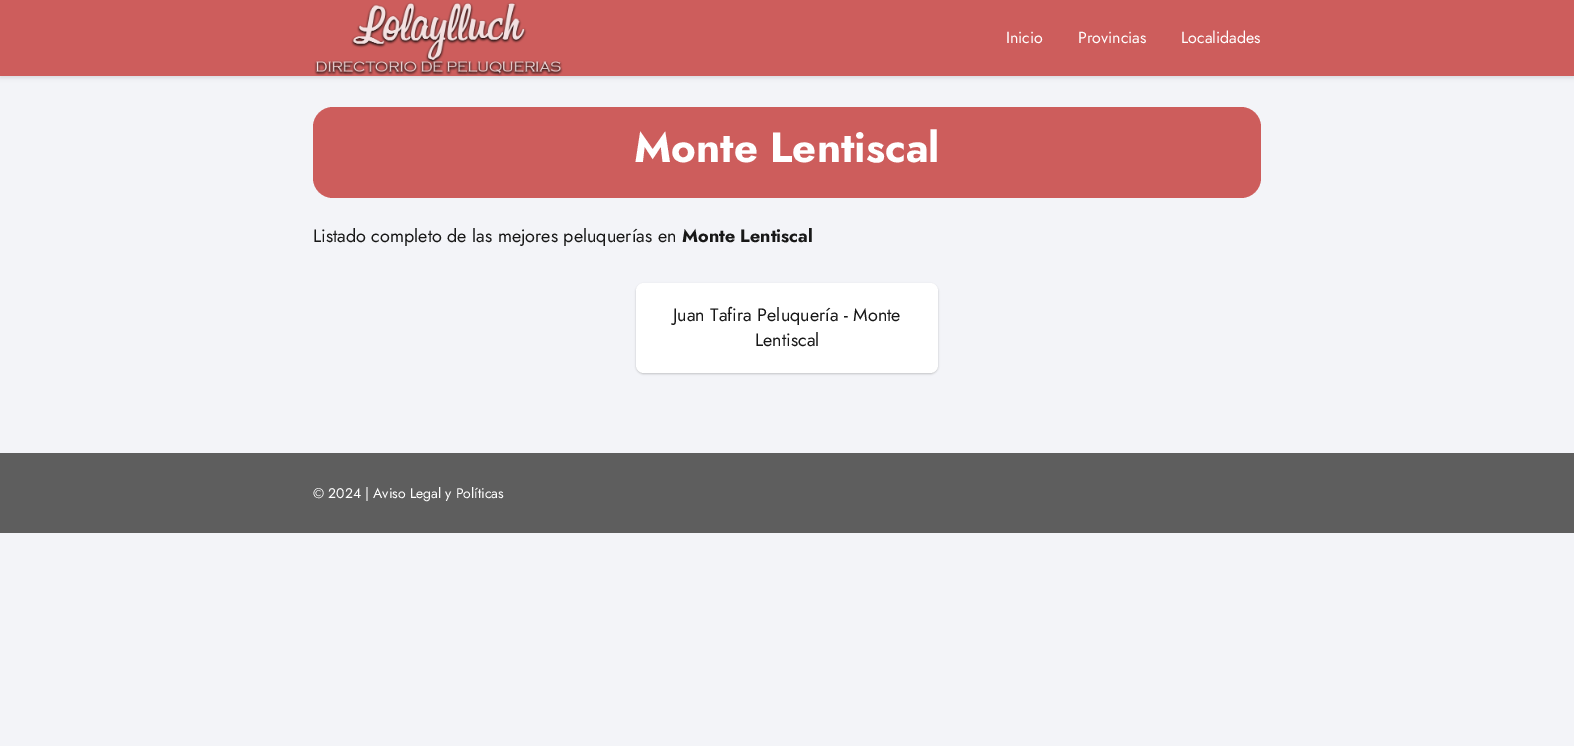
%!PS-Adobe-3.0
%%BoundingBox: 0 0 1574 746
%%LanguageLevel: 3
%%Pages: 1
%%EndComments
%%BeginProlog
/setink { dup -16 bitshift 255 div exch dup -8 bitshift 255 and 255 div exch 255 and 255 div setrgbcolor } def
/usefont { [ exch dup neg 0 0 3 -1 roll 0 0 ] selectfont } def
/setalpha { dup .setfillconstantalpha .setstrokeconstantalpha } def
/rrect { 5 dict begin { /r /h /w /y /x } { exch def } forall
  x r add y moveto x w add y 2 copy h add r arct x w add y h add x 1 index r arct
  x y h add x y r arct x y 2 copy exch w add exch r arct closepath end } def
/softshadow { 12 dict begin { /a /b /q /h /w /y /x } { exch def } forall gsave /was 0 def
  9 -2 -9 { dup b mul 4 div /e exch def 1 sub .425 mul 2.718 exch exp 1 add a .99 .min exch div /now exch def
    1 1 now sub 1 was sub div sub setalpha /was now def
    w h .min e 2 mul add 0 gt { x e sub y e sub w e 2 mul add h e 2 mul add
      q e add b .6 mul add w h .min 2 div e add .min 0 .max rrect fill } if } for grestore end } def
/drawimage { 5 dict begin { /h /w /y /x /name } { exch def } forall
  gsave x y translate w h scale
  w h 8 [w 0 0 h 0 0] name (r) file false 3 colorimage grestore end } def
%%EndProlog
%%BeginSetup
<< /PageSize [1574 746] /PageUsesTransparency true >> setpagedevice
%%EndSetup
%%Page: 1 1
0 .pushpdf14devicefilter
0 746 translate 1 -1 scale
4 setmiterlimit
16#F3F4F8 setink
0 0 1574 746 rectfill
16#000000 setink
0 2 1574 76 0 2 0.1 softshadow
16#CD5D5C setink
0 0 1574 76 rectfill
(img1.raw) 314 2 249 74 drawimage
/Jost-Regular 16 usefont
16#FFFFFF setink
[
    [(Inicio) 1006 43]
    [(Provincias) 1078 43]
    [(Localidades) 1181 43]
] { aload pop moveto show } forall
16#CD5D5C setink
313 107 948 91 20 rrect fill
/Jost-Bold 42 usefont
16#FFFFFF setink
634 162 moveto (Monte Lentiscal) show
/Jost-Regular 18 usefont
16#181818 setink
313 242 moveto (Listado completo de las mejores peluquerías en) show
/Jost-Bold 18 usefont
682 242 moveto (Monte Lentiscal) show
16#000000 setink
636 284 302 90 8 1 0.2 softshadow
16#FFFFFF setink
636 283 302 90 8 rrect fill
/Jost-Regular 18 usefont
16#181818 setink
673 321 moveto (Juan Tafira Peluquería - Monte) show
755 346 moveto (Lentiscal) show
16#5E5E5E setink
0 453 1574 80 rectfill
/Jost-Regular 14 usefont
16#FFFFFF setink
313 498 moveto (© 2024 | Aviso Legal y Políticas) show
.poppdf14devicefilter showpage
%%EOF
